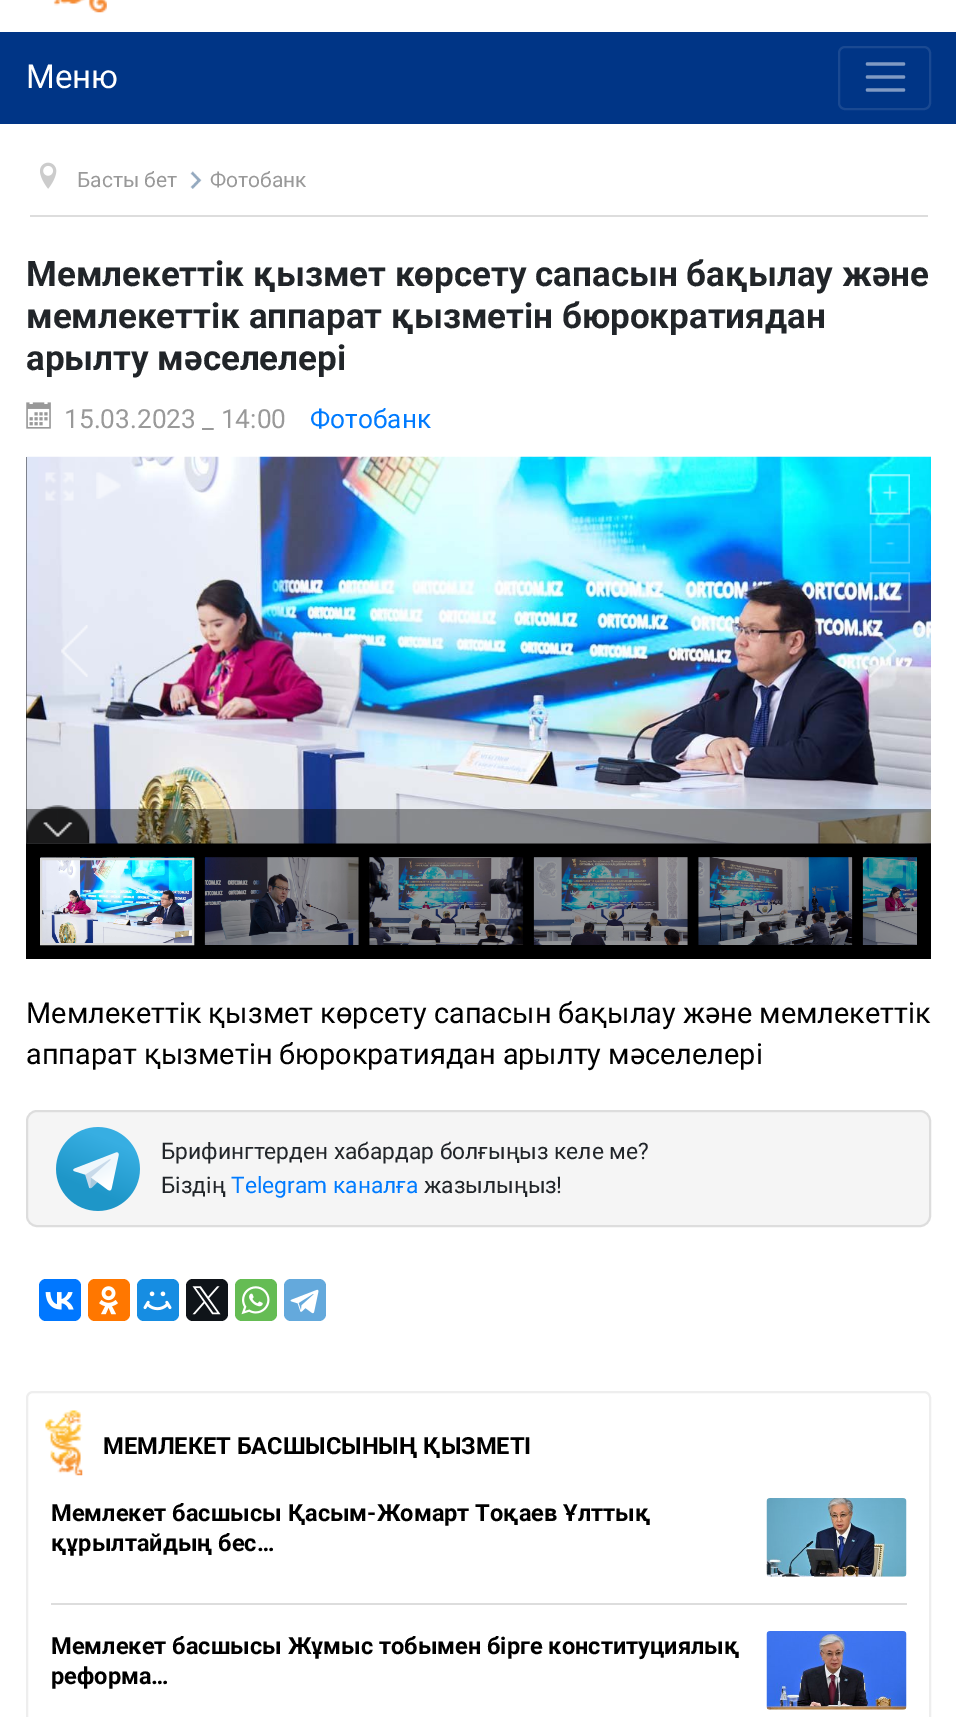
%!PS-Adobe-3.0
%%BoundingBox: 0 0 956 1717
%%LanguageLevel: 3
%%Pages: 1
%%EndComments
%%BeginProlog
/setink { dup -16 bitshift 255 div exch dup -8 bitshift 255 and 255 div exch 255 and 255 div setrgbcolor } def
/usefont { [ exch dup neg 0 0 3 -1 roll 0 0 ] selectfont } def
/setalpha { dup .setfillconstantalpha .setstrokeconstantalpha } def
/rrect { 5 dict begin { /r /h /w /y /x } { exch def } forall
  x r add y moveto x w add y 2 copy h add r arct x w add y h add x 1 index r arct
  x y h add x y r arct x y 2 copy exch w add exch r arct closepath end } def
/drawimage { 5 dict begin { /h /w /y /x /name } { exch def } forall
  gsave x y translate w h scale
  w h 8 [w 0 0 h 0 0] name (r) file false 3 colorimage grestore end } def
%%EndProlog
%%BeginSetup
<< /PageSize [956 1717] /PageUsesTransparency true >> setpagedevice
%%EndSetup
%%Page: 1 1
0 .pushpdf14devicefilter
0 1717 translate 1 -1 scale
4 setmiterlimit
16#FFFFFF setink
0 0 956 1717 rectfill
(img1.raw) 53 0 54 13 drawimage
16#003586 setink
0 32 956 92 rectfill
/Roboto-Regular 33 usefont
16#FFFFFF setink
26 88 moveto (Меню) show
16#1A4992 setink
2 setlinewidth
839 47 91 62 6 rrect stroke
16#809AC3 setink
3.3 setlinewidth
1 setlinecap
867.5 64 moveto 903.5 64 lineto 867.5 77 moveto 903.5 77 lineto 867.5 90 moveto 903.5 90 lineto stroke
16#DDDDDD setink
30 215 898 2 rectfill
(img2.raw) 40 162 17 27 drawimage
/Roboto-Regular 21 usefont
16#999999 setink
77 187 moveto (Басты бет) show
(img3.raw) 190 171 12 18 drawimage
210 187 moveto (Фотобанк) show
/Roboto-Bold 35 usefont
16#212529 setink
[
    [(Мемлекеттік қызмет көрсету сапасын бақылау және) 26 286]
    [(мемлекеттік аппарат қызметін бюрократиядан) 26 328]
    [(арылту мәселелері) 26 370]
] { aload pop moveto show } forall
(img4.raw) 26 402 25 27 drawimage
/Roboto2-Regular 26.25 usefont
16#999999 setink
64 428 moveto (15.03.2023 _ 14:00) show
/Roboto-Regular 26.25 usefont
16#007BFF setink
310 428 moveto (Фотобанк) show
16#000000 setink
26 457 905 502 rectfill
(img5.raw) 26 456 905 388 drawimage
(img6.raw) 45 472 29 29 drawimage
(img7.raw) 96 472 25 27 drawimage
(img8.raw) 869 474 41 41 drawimage
(img9.raw) 869 523 41 41 drawimage
(img10.raw) 869 572 41 41 drawimage
(img11.raw) 61 625 27 52 drawimage
(img12.raw) 869 624 27 54 drawimage
0.4 setalpha
26 809 905 35 rectfill
1 setalpha
(img13.raw) 26 805 64 39 drawimage
(img14.raw) 40 857 155 88 drawimage
16#D9D9D9 setink
2 setlinewidth
0 setlinecap
41 859 152 85 rectstroke
(img15.raw) 204 857 155 88 drawimage
(img16.raw) 369 857 155 88 drawimage
(img17.raw) 533 857 155 88 drawimage
(img18.raw) 698 857 155 88 drawimage
(img19.raw) 862 857 55 88 drawimage
/Roboto-Regular 28.9 usefont
16#000000 setink
26 1023 moveto (Мемлекеттік қызмет көрсету сапасын бақылау және мемлекеттік) show
26 1064 moveto (аппарат қызметін бюрократиядан арылту мәселелері) show
16#F5F5F5 setink
27 1111 903 115 10 rrect gsave fill grestore
16#DDDDDD setink
stroke
(img20.raw) 56 1127 84 84 drawimage
/Roboto-Regular 22.75 usefont
16#212529 setink
161 1159 moveto (Брифингтерден хабардар болғыңыз келе ме) show
/Roboto2-Regular 22.75 usefont
638 1159 moveto (?) show
/Roboto-Regular 22.75 usefont
161 1193 moveto (Біздің) show
/Roboto2-Regular 22.75 usefont
16#007BFF setink
231 1193 moveto (Telegram) show
/Roboto-Regular 22.75 usefont
333 1193 moveto (каналға) show
16#212529 setink
424 1193 moveto (жазылыңыз) show
/Roboto2-Regular 22.75 usefont
556 1193 moveto (!) show
16#0077FF setink
39 1279 42 42 7 rrect fill
(img21.raw) 45 1292 29 18 drawimage
16#FF7700 setink
88 1279 42 42 7 rrect fill
(img22.raw) 99 1286 19 29 drawimage
16#168DE2 setink
137 1279 42 42 7 rrect fill
(img23.raw) 143 1291 29 20 drawimage
16#0F1419 setink
186 1279 42 42 7 rrect fill
(img24.raw) 192 1286 29 29 drawimage
16#65BC54 setink
235 1279 42 42 7 rrect fill
(img25.raw) 241 1286 29 29 drawimage
16#64A9DC setink
284 1279 42 42 7 rrect fill
(img26.raw) 290 1289 29 25 drawimage
16#EEEEEE setink
27 1392 903 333 6 rrect stroke
(img27.raw) 45 1410 38 66 drawimage
/Roboto-Bold 23.6 usefont
16#000000 setink
103 1454 moveto (МЕМЛЕКЕТ БАСШЫСЫНЫҢ ҚЫЗМЕТІ) show
16#DDDDDD setink
51 1603 856 2 rectfill
16#000000 setink
51 1521 moveto (Мемлекет басшысы Қасым-Жомарт Тоқаев Ұлттық) show
51 1551 moveto (құрылтайдың бес…) show
(img28.raw) 766 1498 141 79 drawimage
51 1654 moveto (Мемлекет басшысы Жұмыс тобымен бірге конституциялық) show
51 1684 moveto (реформа…) show
(img29.raw) 766 1631 141 79 drawimage
.poppdf14devicefilter showpage
%%EOF
